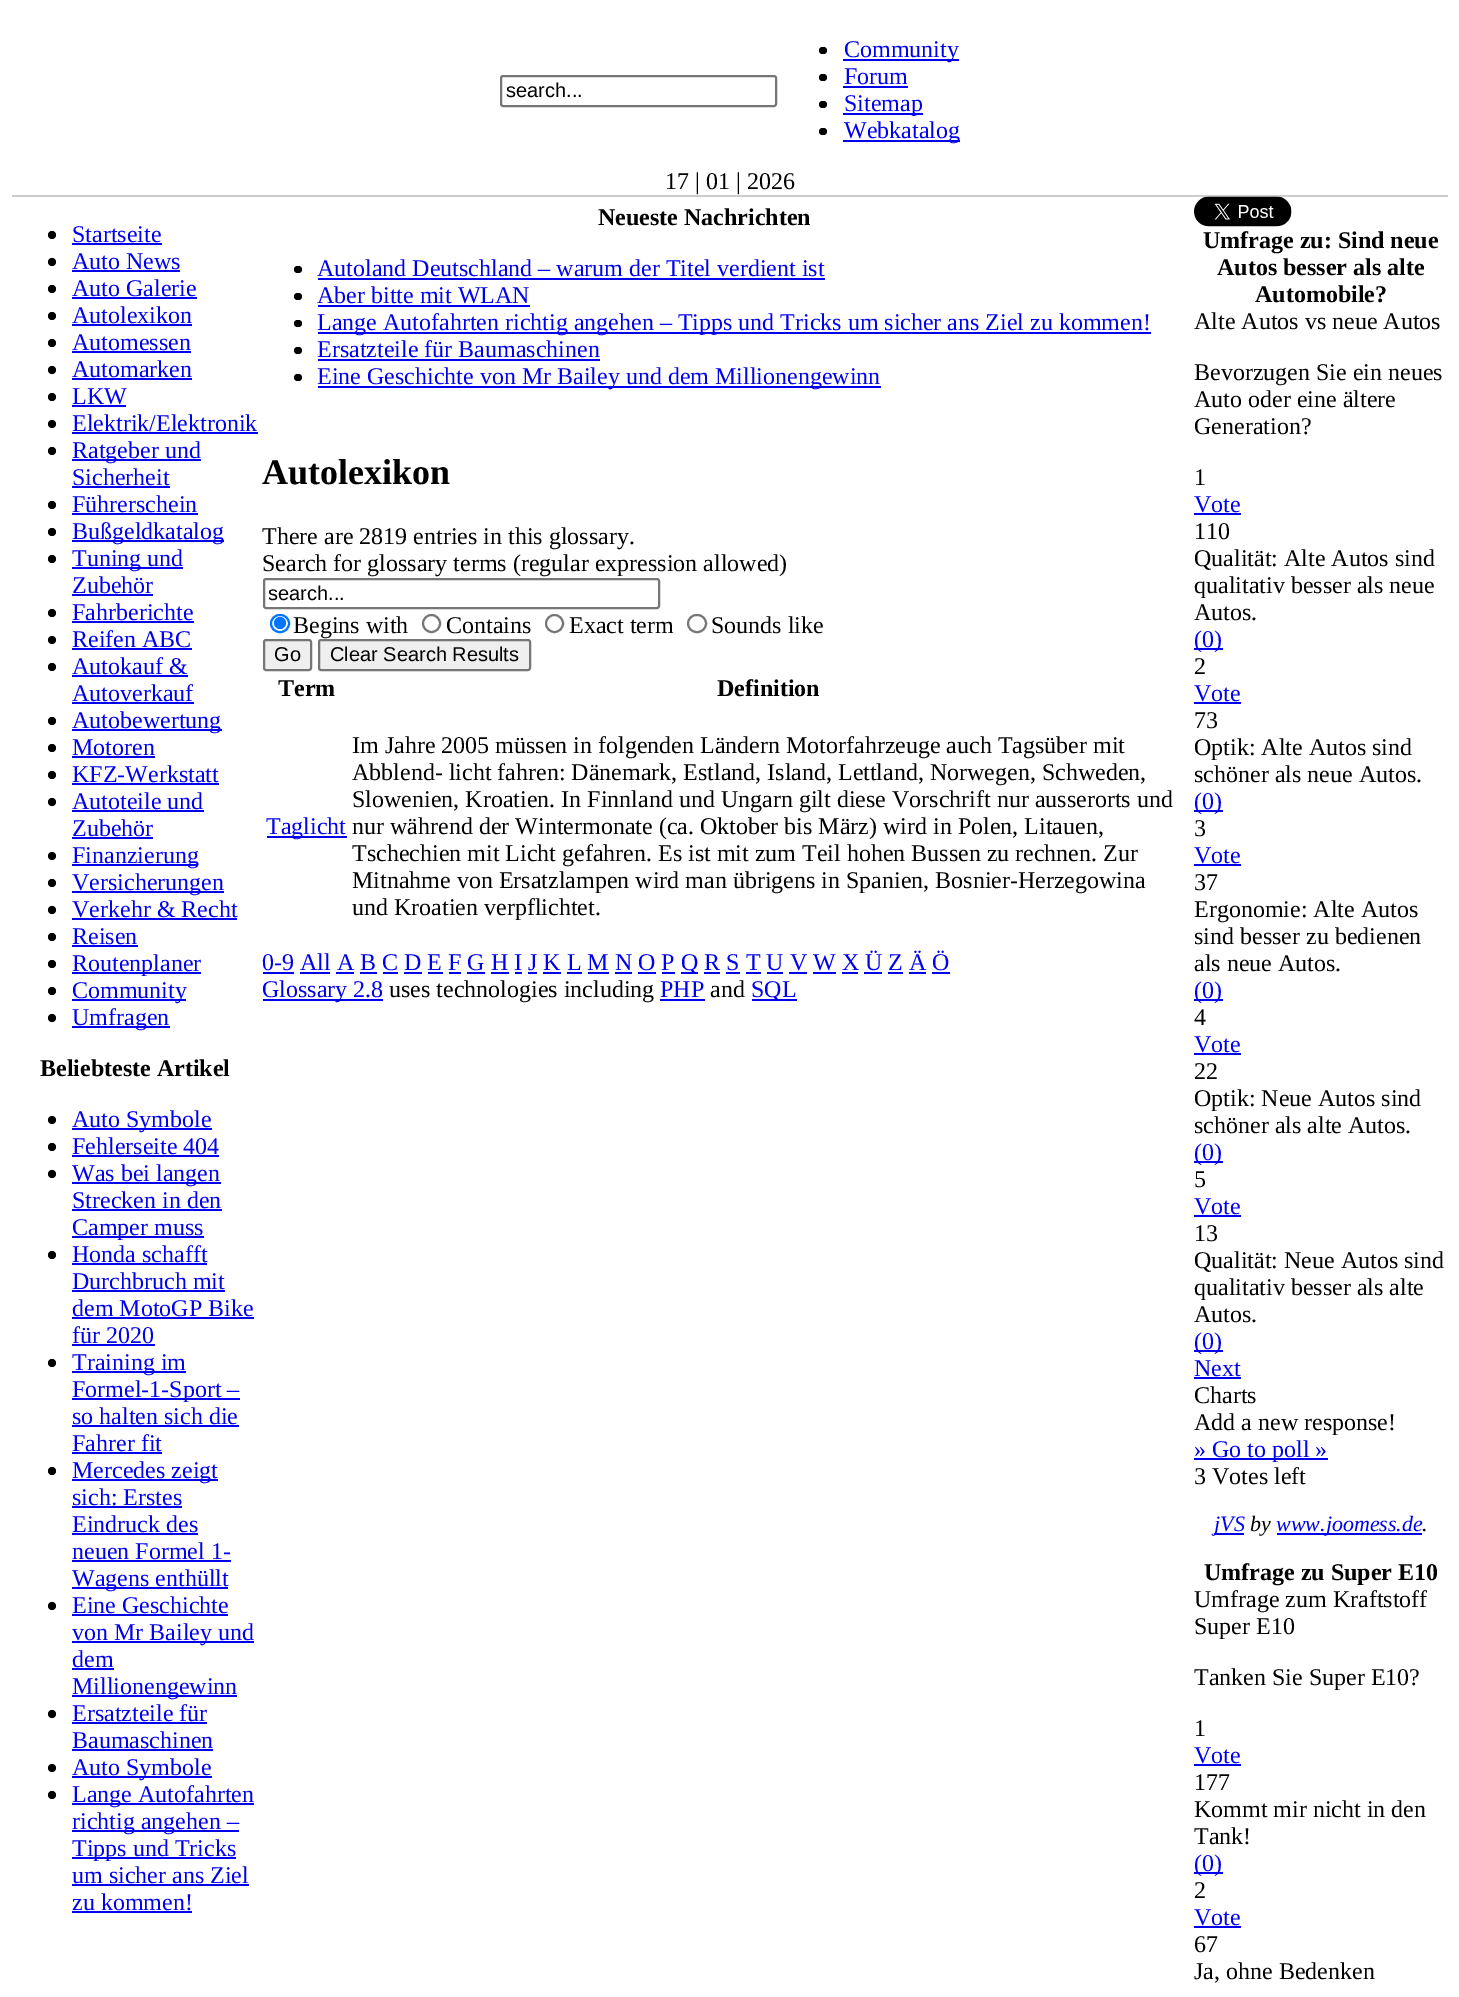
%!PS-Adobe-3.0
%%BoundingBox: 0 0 1459 1997
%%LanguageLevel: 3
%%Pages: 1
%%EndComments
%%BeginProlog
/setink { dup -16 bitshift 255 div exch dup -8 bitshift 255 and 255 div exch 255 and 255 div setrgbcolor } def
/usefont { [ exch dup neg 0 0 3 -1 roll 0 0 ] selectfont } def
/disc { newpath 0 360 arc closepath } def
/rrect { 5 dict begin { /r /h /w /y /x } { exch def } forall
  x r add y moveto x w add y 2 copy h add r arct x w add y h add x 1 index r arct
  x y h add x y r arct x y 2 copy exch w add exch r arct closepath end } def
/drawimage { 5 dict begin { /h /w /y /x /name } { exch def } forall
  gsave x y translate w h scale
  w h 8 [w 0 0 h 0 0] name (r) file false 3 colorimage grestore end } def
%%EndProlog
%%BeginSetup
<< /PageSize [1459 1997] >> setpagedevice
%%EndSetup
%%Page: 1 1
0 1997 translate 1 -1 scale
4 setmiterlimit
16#FFFFFF setink
0 0 1459 1997 rectfill
16#767676 setink
2 setlinewidth
501 76 275 30 2 rrect stroke
/LiberationSans-Regular 20 usefont
16#000000 setink
506 97 moveto (search...) show
819 47 8 7 3.5 rrect fill
16#0000EE setink
843 59 116 2 rectfill
/LiberationSerif-Regular 24 usefont
844 57 moveto (Community) show
16#000000 setink
819 74 8 7 3.5 rrect fill
16#0000EE setink
844 84 moveto (Forum) show
843 86 65 2 rectfill
16#000000 setink
819 101 8 7 3.5 rrect fill
16#0000EE setink
843 113 80 2 rectfill
844 111 moveto (Sitemap) show
16#000000 setink
819 128 8 7 3.5 rrect fill
16#0000EE setink
843 140 117 2 rectfill
844 138 moveto (Webkatalog) show
16#000000 setink
665 189 moveto (17 | 01 | 2026) show
16#CCCCCC setink
12 195 1436 2 rectfill
16#000000 setink
52 235 4 disc fill
16#0000EE setink
72 242 moveto (Startseite) show
72 243 90 2 rectfill
16#000000 setink
52 262 4 disc fill
16#0000EE setink
72 269 moveto (Auto News) show
72 270 108 2 rectfill
16#000000 setink
52 289 4 disc fill
16#0000EE setink
72 296 moveto (Auto Galerie) show
72 297 125 2 rectfill
16#000000 setink
52 316 4 disc fill
16#0000EE setink
72 323 moveto (Autolexikon) show
72 324 120 2 rectfill
16#000000 setink
52 343 4 disc fill
16#0000EE setink
72 350 moveto (Automessen) show
72 351 119 2 rectfill
16#000000 setink
52 370 4 disc fill
16#0000EE setink
72 377 moveto (Automarken) show
72 378 120 2 rectfill
16#000000 setink
52 397 4 disc fill
16#0000EE setink
72 404 moveto (LKW) show
72 405 54 2 rectfill
16#000000 setink
52 424 4 disc fill
16#0000EE setink
72 431 moveto (Elektrik/Elektronik) show
72 432 186 2 rectfill
16#000000 setink
52 451 4 disc fill
16#0000EE setink
72 459 129 2 rectfill
72 458 moveto (Ratgeber und) show
72 485 moveto (Sicherheit) show
72 486 98 2 rectfill
16#000000 setink
52 505 4 disc fill
16#0000EE setink
72 512 moveto (Führerschein) show
72 513 126 2 rectfill
16#000000 setink
52 532 4 disc fill
16#0000EE setink
72 540 152 2 rectfill
72 539 moveto (Bußgeldkatalog) show
16#000000 setink
52 559 4 disc fill
16#0000EE setink
72 567 111 2 rectfill
72 566 moveto (Tuning und) show
72 593 moveto (Zubehör) show
72 594 81 2 rectfill
16#000000 setink
52 613 4 disc fill
16#0000EE setink
72 620 moveto (Fahrberichte) show
72 621 122 2 rectfill
16#000000 setink
52 640 4 disc fill
16#0000EE setink
72 647 moveto (Reifen ABC) show
72 648 120 2 rectfill
16#000000 setink
52 667 4 disc fill
16#0000EE setink
72 674 moveto (Autokauf &) show
72 675 116 2 rectfill
72 701 moveto (Autoverkauf) show
72 702 122 2 rectfill
16#000000 setink
52 721 4 disc fill
16#0000EE setink
72 729 150 2 rectfill
72 728 moveto (Autobewertung) show
16#000000 setink
52 748 4 disc fill
16#0000EE setink
72 755 moveto (Motoren) show
72 756 83 2 rectfill
16#000000 setink
52 775 4 disc fill
16#0000EE setink
72 782 moveto (KFZ-Werkstatt) show
72 783 147 2 rectfill
16#000000 setink
52 802 4 disc fill
16#0000EE setink
72 809 moveto (Autoteile und) show
72 810 132 2 rectfill
72 836 moveto (Zubehör) show
72 837 81 2 rectfill
16#000000 setink
52 856 4 disc fill
16#0000EE setink
72 864 126 2 rectfill
72 863 moveto (Finanzierung) show
16#000000 setink
52 883 4 disc fill
16#0000EE setink
72 891 152 2 rectfill
72 890 moveto (Versicherungen) show
16#000000 setink
52 910 4 disc fill
16#0000EE setink
72 917 moveto (Verkehr & Recht) show
72 918 165 2 rectfill
16#000000 setink
52 937 4 disc fill
16#0000EE setink
72 944 moveto (Reisen) show
72 945 66 2 rectfill
16#000000 setink
52 964 4 disc fill
16#0000EE setink
72 972 129 2 rectfill
72 971 moveto (Routenplaner) show
16#000000 setink
52 991 4 disc fill
16#0000EE setink
72 999 114 2 rectfill
72 998 moveto (Community) show
16#000000 setink
52 1018 4 disc fill
16#0000EE setink
72 1026 98 2 rectfill
72 1025 moveto (Umfragen) show
/LiberationSerif-Bold 24 usefont
16#000000 setink
40 1076 moveto (Beliebteste Artikel) show
52 1120 4 disc fill
16#0000EE setink
72 1128 140 2 rectfill
/LiberationSerif-Regular 24 usefont
72 1127 moveto (Auto Symbole) show
16#000000 setink
52 1147 4 disc fill
16#0000EE setink
72 1154 moveto (Fehlerseite 404) show
72 1155 147 2 rectfill
16#000000 setink
52 1174 4 disc fill
16#0000EE setink
72 1182 149 2 rectfill
72 1181 moveto (Was bei langen) show
72 1208 moveto (Strecken in den) show
72 1209 150 2 rectfill
72 1236 132 2 rectfill
72 1235 moveto (Camper muss) show
16#000000 setink
52 1255 4 disc fill
16#0000EE setink
72 1262 moveto (Honda schafft) show
72 1263 135 2 rectfill
72 1289 moveto (Durchbruch mit) show
72 1290 153 2 rectfill
72 1316 moveto (dem MotoGP Bike) show
72 1317 182 2 rectfill
72 1343 moveto (für 2020) show
72 1344 83 2 rectfill
16#000000 setink
52 1363 4 disc fill
16#0000EE setink
72 1371 114 2 rectfill
72 1370 moveto (Training im) show
72 1398 168 2 rectfill
72 1397 moveto (Formel-1-Sport –) show
72 1424 moveto (so halten sich die) show
72 1425 167 2 rectfill
72 1451 moveto (Fahrer fit) show
72 1452 90 2 rectfill
16#000000 setink
52 1471 4 disc fill
16#0000EE setink
72 1479 146 2 rectfill
72 1478 moveto (Mercedes zeigt) show
72 1505 moveto (sich: Erstes) show
72 1506 110 2 rectfill
72 1532 moveto (Eindruck des) show
72 1533 126 2 rectfill
72 1559 moveto (neuen Formel 1-) show
72 1560 159 2 rectfill
72 1587 156 2 rectfill
72 1586 moveto (Wagens enthüllt) show
16#000000 setink
52 1606 4 disc fill
16#0000EE setink
72 1613 moveto (Eine Geschichte) show
72 1614 156 2 rectfill
72 1641 182 2 rectfill
72 1640 moveto (von Mr Bailey und) show
72 1667 moveto (dem) show
72 1668 42 2 rectfill
72 1695 165 2 rectfill
72 1694 moveto (Millionengewinn) show
16#000000 setink
52 1714 4 disc fill
16#0000EE setink
72 1721 moveto (Ersatzteile für) show
72 1722 135 2 rectfill
72 1748 moveto (Baumaschinen) show
72 1749 141 2 rectfill
16#000000 setink
52 1768 4 disc fill
16#0000EE setink
72 1776 140 2 rectfill
72 1775 moveto (Auto Symbole) show
16#000000 setink
52 1795 4 disc fill
16#0000EE setink
72 1803 182 2 rectfill
72 1802 moveto (Lange Autofahrten) show
72 1830 167 2 rectfill
72 1829 moveto (richtig angehen –) show
72 1857 164 2 rectfill
72 1856 moveto (Tipps und Tricks) show
72 1883 moveto (um sicher ans Ziel) show
72 1884 177 2 rectfill
72 1910 moveto (zu kommen!) show
72 1911 120 2 rectfill
/LiberationSerif-Bold 24 usefont
16#000000 setink
598 225 moveto (Neueste Nachrichten) show
294 266 8 7 3.5 rrect fill
/LiberationSerif-Regular 24 usefont
16#0000EE setink
317 276 moveto (Autoland Deutschland – warum der Titel verdient ist) show
318 278 507 2 rectfill
16#000000 setink
294 293 8 7 3.5 rrect fill
16#0000EE setink
317 303 moveto (Aber bitte mit WLAN) show
318 305 212 2 rectfill
16#000000 setink
294 320 8 7 3.5 rrect fill
16#0000EE setink
318 332 833 2 rectfill
317 330 moveto (Lange Autofahrten richtig angehen – Tipps und Tricks um sicher ans Ziel zu kommen!) show
16#000000 setink
294 347 8 7 3.5 rrect fill
16#0000EE setink
317 357 moveto (Ersatzteile für Baumaschinen) show
318 359 282 2 rectfill
16#000000 setink
294 374 8 7 3.5 rrect fill
16#0000EE setink
318 386 563 2 rectfill
317 384 moveto (Eine Geschichte von Mr Bailey und dem Millionengewinn) show
/LiberationSerif-Bold 36 usefont
16#000000 setink
262 484 moveto (Autolexikon) show
/LiberationSerif-Regular 24 usefont
262 544 moveto (There are 2819 entries in this glossary.) show
262 571 moveto (Search for glossary terms \(regular expression allowed\)) show
16#767676 setink
264 579 395 29 2 rrect stroke
gsave
269 582 385 23 rectclip
/LiberationSans-Regular 20 usefont
16#000000 setink
268 600 moveto (search...) show
grestore
16#0075FF setink
271 615 18 17 8.5 rrect stroke
280 623 6 disc fill
16#000000 setink
293 633 moveto (Begins with) show
16#767676 setink
431.5 623.5 8.5 disc stroke
16#000000 setink
446 633 moveto (Contains) show
16#767676 setink
554.5 623.5 8.5 disc stroke
16#000000 setink
569 633 moveto (Exact term) show
16#767676 setink
688 615 18 17 8.5 rrect stroke
16#000000 setink
711 633 moveto (Sounds like) show
16#EFEFEF setink
264 640 47 30 2 rrect gsave fill grestore
16#767676 setink
stroke
/LiberationSans-Regular 20 usefont
16#000000 setink
274 661 moveto (Go) show
16#EFEFEF setink
319 640 211 30 2 rrect gsave fill grestore
16#767676 setink
stroke
16#000000 setink
330 661 moveto (Clear Search Results) show
/LiberationSerif-Bold 24 usefont
278 696 moveto (Term) show
717 696 moveto (Definition) show
16#0000EE setink
267 836 80 2 rectfill
/LiberationSerif-Regular 24 usefont
266 834 moveto (Taglicht) show
16#000000 setink
[
    [(Im Jahre 2005 müssen in folgenden Ländern Motorfahrzeuge auch Tagsüber mit) 352 753]
    [(Abblend- licht fahren: Dänemark, Estland, Island, Lettland, Norwegen, Schweden,) 352 780]
    [(Slowenien, Kroatien. In Finnland und Ungarn gilt diese Vorschrift nur ausserorts und) 352 807]
    [(nur während der Wintermonate \(ca. Oktober bis März\) wird in Polen, Litauen,) 352 834]
    [(Tschechien mit Licht gefahren. Es ist mit zum Teil hohen Bussen zu rechnen. Zur) 352 861]
    [(Mitnahme von Ersatzlampen wird man übrigens in Spanien, Bosnier-Herzegowina) 352 888]
    [(und Kroatien verpflichtet.) 352 915]
] { aload pop moveto show } forall
16#0000EE setink
262 970 moveto (0-9 All A B C D E F G H I J K L M N O P) show
263 972 31 2 rectfill
681 972 17 2 rectfill
681 970 moveto (Q R S T U V W X Ü Z Ä Ö) show
[
    [300 972 30 2 16#0000EE]
    [336 972 18 2 16#0000EE]
    [360 972 17 2 16#0000EE]
    [383 972 15 2 16#0000EE]
    [404 972 18 2 16#0000EE]
    [428 972 15 2 16#0000EE]
    [449 972 12 2 16#0000EE]
    [467 972 18 2 16#0000EE]
    [491 972 18 2 16#0000EE]
    [515 972 7 2 16#0000EE]
    [528 972 9 2 16#0000EE]
    [543 972 18 2 16#0000EE]
    [567 972 15 2 16#0000EE]
    [588 972 21 2 16#0000EE]
    [615 972 17 2 16#0000EE]
    [638 972 18 2 16#0000EE]
    [662 972 13 2 16#0000EE]
    [704 972 16 2 16#0000EE]
    [726 972 14 2 16#0000EE]
    [746 972 15 2 16#0000EE]
    [767 972 16 2 16#0000EE]
    [789 972 18 2 16#0000EE]
    [813 972 23 2 16#0000EE]
    [842 972 16 2 16#0000EE]
    [864 972 18 2 16#0000EE]
    [888 972 15 2 16#0000EE]
    [909 972 17 2 16#0000EE]
    [932 972 18 2 16#0000EE]
    [263 999 120 2 16#0000EE]
] { aload pop setink rectfill } forall
262 997 moveto (Glossary 2.8) show
16#000000 setink
389 997 moveto (uses technologies including) show
16#0000EE setink
660 997 moveto (PHP) show
660 999 45 2 rectfill
16#000000 setink
710 997 moveto (and) show
16#0000EE setink
752 999 45 2 rectfill
751 997 moveto (SQL) show
(img1.raw) 1194 196 98 31 drawimage
/LiberationSerif-Bold 24 usefont
16#000000 setink
[
    [(Umfrage zu: Sind neue) 1203 248]
    [(Autos besser als alte) 1217 275]
    [(Automobile?) 1255 302]
] { aload pop moveto show } forall
/LiberationSerif-Regular 24 usefont
[
    [(Alte Autos vs neue Autos) 1194 329]
    [(Bevorzugen Sie ein neues) 1194 380]
    [(Auto oder eine ältere) 1194 407]
    [(Generation?) 1194 434]
    [(1) 1194 485]
] { aload pop moveto show } forall
16#0000EE setink
1194 512 moveto (Vote) show
1194 513 47 2 rectfill
16#000000 setink
[
    [(110) 1194 539]
    [(Qualität: Alte Autos sind) 1194 566]
    [(qualitativ besser als neue) 1194 593]
    [(Autos.) 1194 620]
] { aload pop moveto show } forall
16#0000EE setink
1194 648 29 2 rectfill
1194 647 moveto (\(0\)) show
16#000000 setink
1194 674 moveto (2) show
16#0000EE setink
1194 701 moveto (Vote) show
1194 702 47 2 rectfill
16#000000 setink
[
    [(73) 1194 728]
    [(Optik: Alte Autos sind) 1194 755]
    [(schöner als neue Autos.) 1194 782]
] { aload pop moveto show } forall
16#0000EE setink
1194 810 29 2 rectfill
1194 809 moveto (\(0\)) show
16#000000 setink
1194 836 moveto (3) show
16#0000EE setink
1194 863 moveto (Vote) show
1194 864 47 2 rectfill
16#000000 setink
[
    [(37) 1194 890]
    [(Ergonomie: Alte Autos) 1194 917]
    [(sind besser zu bedienen) 1194 944]
    [(als neue Autos.) 1194 971]
] { aload pop moveto show } forall
16#0000EE setink
1194 999 29 2 rectfill
1194 998 moveto (\(0\)) show
16#000000 setink
1194 1025 moveto (4) show
16#0000EE setink
1194 1052 moveto (Vote) show
1194 1053 47 2 rectfill
16#000000 setink
[
    [(22) 1194 1079]
    [(Optik: Neue Autos sind) 1194 1106]
    [(schöner als alte Autos.) 1194 1133]
] { aload pop moveto show } forall
16#0000EE setink
1194 1161 29 2 rectfill
1194 1160 moveto (\(0\)) show
16#000000 setink
1194 1187 moveto (5) show
16#0000EE setink
1194 1214 moveto (Vote) show
1194 1215 47 2 rectfill
16#000000 setink
[
    [(13) 1194 1241]
    [(Qualität: Neue Autos sind) 1194 1268]
    [(qualitativ besser als alte) 1194 1295]
    [(Autos.) 1194 1322]
] { aload pop moveto show } forall
16#0000EE setink
1194 1350 29 2 rectfill
1194 1349 moveto (\(0\)) show
1194 1376 moveto (Next) show
1194 1377 47 2 rectfill
16#000000 setink
1194 1403 moveto (Charts) show
1194 1430 moveto (Add a new response!) show
16#0000EE setink
1194 1458 134 2 rectfill
1194 1457 moveto (» Go to poll ») show
16#000000 setink
1194 1484 moveto (3 Votes left) show
16#0000EE setink
1214 1533 30 2 rectfill
/LiberationSerif-Italic 22 usefont
1214 1531 moveto (jVS) show
16#000000 setink
1250 1531 moveto (by) show
16#0000EE setink
1277 1533 145 2 rectfill
1276 1531 moveto (www.joomess.de) show
16#000000 setink
1422 1531 moveto (.) show
/LiberationSerif-Bold 24 usefont
1204 1580 moveto (Umfrage zu Super E10) show
/LiberationSerif-Regular 24 usefont
[
    [(Umfrage zum Kraftstoff) 1194 1607]
    [(Super E10) 1194 1634]
    [(Tanken Sie Super E10?) 1194 1685]
    [(1) 1194 1736]
] { aload pop moveto show } forall
16#0000EE setink
1194 1763 moveto (Vote) show
1194 1764 47 2 rectfill
16#000000 setink
[
    [(177) 1194 1790]
    [(Kommt mir nicht in den) 1194 1817]
    [(Tank!) 1194 1844]
] { aload pop moveto show } forall
16#0000EE setink
1194 1872 29 2 rectfill
1194 1871 moveto (\(0\)) show
16#000000 setink
1194 1898 moveto (2) show
16#0000EE setink
1194 1925 moveto (Vote) show
1194 1926 47 2 rectfill
16#000000 setink
1194 1952 moveto (67) show
1194 1979 moveto (Ja, ohne Bedenken) show
showpage
%%EOF
